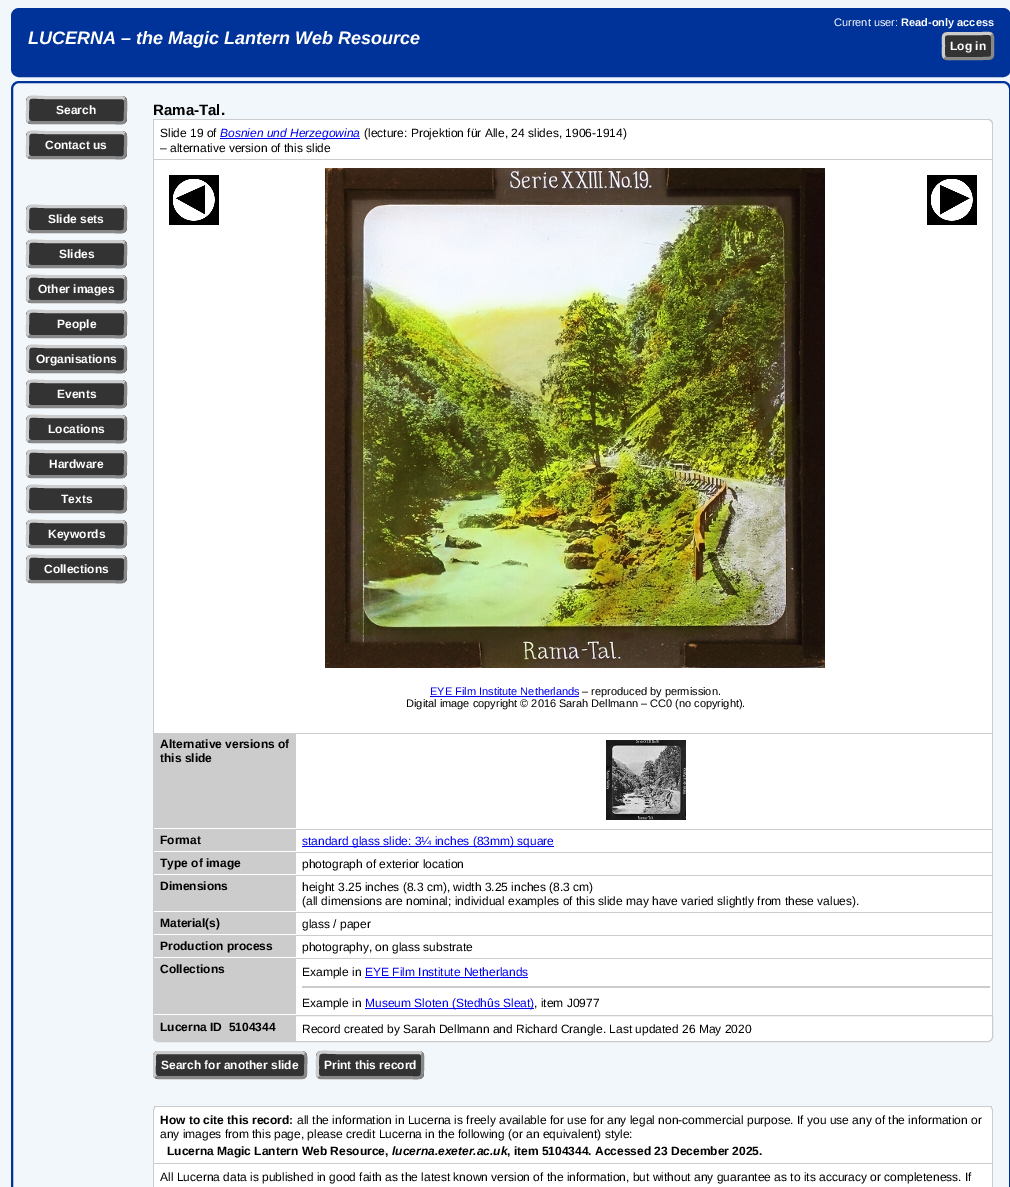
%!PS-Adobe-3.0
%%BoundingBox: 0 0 1010 1187
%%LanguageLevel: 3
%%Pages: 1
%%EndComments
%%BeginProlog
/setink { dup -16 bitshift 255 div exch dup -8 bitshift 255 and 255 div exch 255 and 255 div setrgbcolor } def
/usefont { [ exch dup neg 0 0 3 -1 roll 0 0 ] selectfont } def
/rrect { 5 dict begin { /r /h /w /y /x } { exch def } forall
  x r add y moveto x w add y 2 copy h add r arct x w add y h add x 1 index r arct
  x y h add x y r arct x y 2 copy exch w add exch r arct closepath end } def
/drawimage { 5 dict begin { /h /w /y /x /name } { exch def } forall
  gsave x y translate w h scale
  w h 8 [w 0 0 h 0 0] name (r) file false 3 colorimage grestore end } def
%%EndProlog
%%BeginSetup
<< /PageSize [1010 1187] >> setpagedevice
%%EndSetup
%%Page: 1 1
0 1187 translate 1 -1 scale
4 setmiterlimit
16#F1F7FB setink
0 0 1010 1187 rectfill
16#003399 setink
12 9 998 67 7 rrect gsave fill grestore
2 setlinewidth
stroke
/LiberationSans-BoldItalic 18 usefont
16#FFFFFF setink
28 44 moveto (LUCERNA – the Magic Lantern Web Resource) show
/LiberationSans-Regular 11 usefont
834 26 moveto (Current user:) show
/LiberationSans-Bold 11 usefont
901 26 moveto (Read-only access) show
16#333333 setink
942 32 52 28 5 rrect fill
16#888888 setink
3 setlinewidth
991.5 34.5 moveto 993.5 36.5 992.5 43.5 992.5 46 curveto 992.5 58.5 994.5 58.5 982 58.5 curveto 954 58.5 lineto 952.5 58.5 946.5 59.5 944.5 57.5 curveto stroke
16#CCCCCC setink
944.5 57.5 moveto 942.5 55.5 943.5 48.5 943.5 46 curveto 943.5 33.5 941.5 33.5 954 33.5 curveto 982 33.5 lineto 983.5 33.5 989.5 32.5 991.5 34.5 curveto stroke
/LiberationSans-Bold 12 usefont
16#FFFFFF setink
950 50 moveto (Log in) show
16#003399 setink
2 setlinewidth
12 82 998 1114 7 rrect stroke
16#333333 setink
26 96 101 28 5 rrect fill
16#888888 setink
3 setlinewidth
124.5 98.5 moveto 126.5 100.5 125.5 107.5 125.5 110 curveto 125.5 126.5 126 122.5 107 122.5 curveto 31 122.5 lineto 28.5 121.5 lineto stroke
16#CCCCCC setink
28.5 121.5 moveto 26.5 119.5 27.5 112.5 27.5 110 curveto 27.5 93.5 27 97.5 46 97.5 curveto 122 97.5 lineto 124.5 98.5 lineto stroke
16#FFFFFF setink
56 114 moveto (Search) show
16#333333 setink
26 131 101 28 5 rrect fill
16#888888 setink
124.5 133.5 moveto 126.5 135.5 125.5 142.5 125.5 145 curveto 125.5 161.5 126 157.5 107 157.5 curveto 31 157.5 lineto 28.5 156.5 lineto stroke
16#CCCCCC setink
28.5 156.5 moveto 26.5 154.5 27.5 147.5 27.5 145 curveto 27.5 128.5 27 132.5 46 132.5 curveto 122 132.5 lineto 124.5 133.5 lineto stroke
16#FFFFFF setink
45 149 moveto (Contact us) show
16#333333 setink
26 205 101 28 5 rrect fill
16#888888 setink
124.5 207.5 moveto 126.5 209.5 125.5 216.5 125.5 219 curveto 125.5 235.5 126 231.5 107 231.5 curveto 31 231.5 lineto 28.5 230.5 lineto stroke
16#CCCCCC setink
28.5 230.5 moveto 26.5 228.5 27.5 221.5 27.5 219 curveto 27.5 202.5 27 206.5 46 206.5 curveto 122 206.5 lineto 124.5 207.5 lineto stroke
16#FFFFFF setink
48 223 moveto (Slide sets) show
16#333333 setink
26 240 101 28 5 rrect fill
16#888888 setink
124.5 242.5 moveto 126.5 244.5 125.5 251.5 125.5 254 curveto 125.5 270.5 126 266.5 107 266.5 curveto 31 266.5 lineto 28.5 265.5 lineto stroke
16#CCCCCC setink
28.5 265.5 moveto 26.5 263.5 27.5 256.5 27.5 254 curveto 27.5 237.5 27 241.5 46 241.5 curveto 122 241.5 lineto 124.5 242.5 lineto stroke
16#FFFFFF setink
59 258 moveto (Slides) show
16#333333 setink
26 275 101 28 5 rrect fill
16#888888 setink
124.5 277.5 moveto 126.5 279.5 125.5 286.5 125.5 289 curveto 125.5 305.5 126 301.5 107 301.5 curveto 31 301.5 lineto 28.5 300.5 lineto stroke
16#CCCCCC setink
28.5 300.5 moveto 26.5 298.5 27.5 291.5 27.5 289 curveto 27.5 272.5 27 276.5 46 276.5 curveto 122 276.5 lineto 124.5 277.5 lineto stroke
16#FFFFFF setink
38 293 moveto (Other images) show
16#333333 setink
26 310 101 28 5 rrect fill
16#888888 setink
124.5 312.5 moveto 126.5 314.5 125.5 321.5 125.5 324 curveto 125.5 340.5 126 336.5 107 336.5 curveto 31 336.5 lineto 28.5 335.5 lineto stroke
16#CCCCCC setink
28.5 335.5 moveto 26.5 333.5 27.5 326.5 27.5 324 curveto 27.5 307.5 27 311.5 46 311.5 curveto 122 311.5 lineto 124.5 312.5 lineto stroke
16#FFFFFF setink
57 328 moveto (People) show
16#333333 setink
26 345 101 28 5 rrect fill
16#888888 setink
124.5 347.5 moveto 126.5 349.5 125.5 356.5 125.5 359 curveto 125.5 375.5 126 371.5 107 371.5 curveto 31 371.5 lineto 28.5 370.5 lineto stroke
16#CCCCCC setink
28.5 370.5 moveto 26.5 368.5 27.5 361.5 27.5 359 curveto 27.5 342.5 27 346.5 46 346.5 curveto 122 346.5 lineto 124.5 347.5 lineto stroke
16#FFFFFF setink
36 363 moveto (Organisations) show
16#333333 setink
26 380 101 28 5 rrect fill
16#888888 setink
124.5 382.5 moveto 126.5 384.5 125.5 391.5 125.5 394 curveto 125.5 410.5 126 406.5 107 406.5 curveto 31 406.5 lineto 28.5 405.5 lineto stroke
16#CCCCCC setink
28.5 405.5 moveto 26.5 403.5 27.5 396.5 27.5 394 curveto 27.5 377.5 27 381.5 46 381.5 curveto 122 381.5 lineto 124.5 382.5 lineto stroke
16#FFFFFF setink
57 398 moveto (Events) show
16#333333 setink
26 415 101 28 5 rrect fill
16#888888 setink
124.5 417.5 moveto 126.5 419.5 125.5 426.5 125.5 429 curveto 125.5 445.5 126 441.5 107 441.5 curveto 31 441.5 lineto 28.5 440.5 lineto stroke
16#CCCCCC setink
28.5 440.5 moveto 26.5 438.5 27.5 431.5 27.5 429 curveto 27.5 412.5 27 416.5 46 416.5 curveto 122 416.5 lineto 124.5 417.5 lineto stroke
16#FFFFFF setink
48 433 moveto (Locations) show
16#333333 setink
26 450 101 28 5 rrect fill
16#888888 setink
124.5 452.5 moveto 126.5 454.5 125.5 461.5 125.5 464 curveto 125.5 480.5 126 476.5 107 476.5 curveto 31 476.5 lineto 28.5 475.5 lineto stroke
16#CCCCCC setink
28.5 475.5 moveto 26.5 473.5 27.5 466.5 27.5 464 curveto 27.5 447.5 27 451.5 46 451.5 curveto 122 451.5 lineto 124.5 452.5 lineto stroke
16#FFFFFF setink
49 468 moveto (Hardware) show
16#333333 setink
26 485 101 28 5 rrect fill
16#888888 setink
124.5 487.5 moveto 126.5 489.5 125.5 496.5 125.5 499 curveto 125.5 515.5 126 511.5 107 511.5 curveto 31 511.5 lineto 28.5 510.5 lineto stroke
16#CCCCCC setink
28.5 510.5 moveto 26.5 508.5 27.5 501.5 27.5 499 curveto 27.5 482.5 27 486.5 46 486.5 curveto 122 486.5 lineto 124.5 487.5 lineto stroke
16#FFFFFF setink
61 503 moveto (Texts) show
16#333333 setink
26 520 101 28 5 rrect fill
16#888888 setink
124.5 522.5 moveto 126.5 524.5 125.5 531.5 125.5 534 curveto 125.5 550.5 126 546.5 107 546.5 curveto 31 546.5 lineto 28.5 545.5 lineto stroke
16#CCCCCC setink
28.5 545.5 moveto 26.5 543.5 27.5 536.5 27.5 534 curveto 27.5 517.5 27 521.5 46 521.5 curveto 122 521.5 lineto 124.5 522.5 lineto stroke
16#FFFFFF setink
48 538 moveto (Keywords) show
16#333333 setink
26 555 101 28 5 rrect fill
16#888888 setink
124.5 557.5 moveto 126.5 559.5 125.5 566.5 125.5 569 curveto 125.5 585.5 126 581.5 107 581.5 curveto 31 581.5 lineto 28.5 580.5 lineto stroke
16#CCCCCC setink
28.5 580.5 moveto 26.5 578.5 27.5 571.5 27.5 569 curveto 27.5 552.5 27 556.5 46 556.5 curveto 122 556.5 lineto 124.5 557.5 lineto stroke
16#FFFFFF setink
44 573 moveto (Collections) show
/LiberationSans-Bold 15 usefont
16#000000 setink
153 115 moveto (Rama-Tal.) show
16#FFFFFF setink
153 119 moveto 988 119 lineto 991 119 993 121 993 124 curveto 993 159 lineto 153 159 lineto closepath fill
16#CCCCCC setink
153 119 moveto 988 119 lineto 991 119 993 121 993 124 curveto 993 159 lineto 153 159 lineto closepath 154 120 moveto 988 120 lineto 990 120 992 122 992 124 curveto 992 159 lineto 154 159 lineto closepath eofill
/LiberationSans-Regular 12 usefont
16#000000 setink
160 137 moveto (Slide 19 of) show
16#0000EE setink
220 138 140 1 rectfill
/LiberationSans-Italic 12 usefont
220 137 moveto (Bosnien und Herzegowina) show
/LiberationSans-Regular 12 usefont
16#000000 setink
364 137 moveto (\(lecture: Projektion für Alle, 24 slides, 1906-1914\)) show
160 152 moveto (– alternative version of this slide) show
[
    [154 160 838 573 16#FFFFFF]
    [153 159 840 1 16#CCCCCC]
    [992 159 1 856 16#CCCCCC]
    [153 159 1 856 16#CCCCCC]
] { aload pop setink rectfill } forall
(img1.raw) 169 175 50 50 drawimage
(img2.raw) 325 168 500 500 drawimage
(img3.raw) 927 175 50 50 drawimage
/LiberationSans-Regular 11 usefont
16#0000EE setink
430 695 moveto (EYE Film Institute Netherlands) show
430 696 149 1 rectfill
16#000000 setink
582 695 moveto (– reproduced by permission.) show
406 707 moveto (Digital image copyright © 2016 Sarah Dellmann – CC0 \(no copyright\).) show
[
    [296 734 696 95 16#FFFFFF]
    [154 733 142 95 16#CCCCCC]
    [154 828 142 1 16#FFFFFF]
] { aload pop setink rectfill } forall
/LiberationSans-Bold 12 usefont
16#000000 setink
160 748 moveto (Alternative versions of) show
160 762 moveto (this slide) show
16#CCCCCC setink
296 733 696 1 rectfill
(img4.raw) 606 740 80 80 drawimage
[
    [296 830 696 185 16#FFFFFF]
    [154 829 142 22 16#CCCCCC]
    [154 851 142 1 16#FFFFFF]
] { aload pop setink rectfill } forall
16#000000 setink
160 844 moveto (Format) show
16#CCCCCC setink
296 829 696 1 rectfill
16#0000EE setink
302 846 252 1 rectfill
/LiberationSans-Regular 12 usefont
302 845 moveto (standard glass slide: 3¼ inches \(83mm\) square) show
16#CCCCCC setink
154 852 142 22 rectfill
16#FFFFFF setink
154 874 142 1 rectfill
/LiberationSans-Bold 12 usefont
16#000000 setink
160 867 moveto (Type of image) show
16#CCCCCC setink
296 852 696 1 rectfill
/LiberationSans-Regular 12 usefont
16#000000 setink
302 868 moveto (photograph of exterior location) show
16#CCCCCC setink
154 875 142 36 rectfill
16#FFFFFF setink
154 911 142 1 rectfill
/LiberationSans-Bold 12 usefont
16#000000 setink
160 890 moveto (Dimensions) show
16#CCCCCC setink
296 875 696 1 rectfill
/LiberationSans-Regular 12 usefont
16#000000 setink
302 891 moveto (height 3.25 inches \(8.3 cm\), width 3.25 inches \(8.3 cm\)) show
302 905 moveto (\(all dimensions are nominal; individual examples of this slide may have varied slightly from these values\).) show
16#CCCCCC setink
154 912 142 22 rectfill
16#FFFFFF setink
154 934 142 1 rectfill
/LiberationSans-Bold 12 usefont
16#000000 setink
160 927 moveto (Material\(s\)) show
16#CCCCCC setink
296 912 696 1 rectfill
/LiberationSans-Regular 12 usefont
16#000000 setink
302 928 moveto (glass / paper) show
16#CCCCCC setink
154 935 142 22 rectfill
16#FFFFFF setink
154 957 142 1 rectfill
/LiberationSans-Bold 12 usefont
16#000000 setink
160 950 moveto (Production process) show
16#CCCCCC setink
296 935 696 1 rectfill
/LiberationSans-Regular 12 usefont
16#000000 setink
302 951 moveto (photography, on glass substrate) show
16#CCCCCC setink
154 958 142 56 rectfill
16#FFFFFF setink
154 1014 142 1 rectfill
/LiberationSans-Bold 12 usefont
16#000000 setink
160 973 moveto (Collections) show
16#CCCCCC setink
296 958 696 1 rectfill
/LiberationSans-Regular 12 usefont
16#000000 setink
302 976 moveto (Example in) show
16#0000EE setink
365 976 moveto (EYE Film Institute Netherlands) show
365 977 163 1 rectfill
16#CCCCCC setink
302 986 688 2 rectfill
16#000000 setink
302 1007 moveto (Example in) show
16#0000EE setink
365 1008 169 1 rectfill
365 1007 moveto (Museum Sloten \(Stedhûs Sleat\)) show
16#000000 setink
534 1007 moveto (, item J0977) show
16#FFFFFF setink
153.5 1015.5 moveto 992.5 1015.5 lineto 992.5 1037 lineto 992.5 1039.5 990.5 1041.5 988 1041.5 curveto 158 1041.5 lineto 155.5 1041.5 153.5 1039.5 153.5 1037 curveto closepath gsave fill grestore
16#CCCCCC setink
1 setlinewidth
stroke
154 1016 142 25 rectfill
/LiberationSans-Bold 12 usefont
16#000000 setink
160 1031 moveto (Lucerna ID  5104344) show
/LiberationSans-Regular 12 usefont
302 1033 moveto (Record created by Sarah Dellmann and Richard Crangle. Last updated 26 May 2020) show
16#333333 setink
153 1051 154 28 5 rrect fill
16#888888 setink
3 setlinewidth
304.5 1053.5 moveto 307 1056 305.5 1065 305.5 1068 curveto 305.5 1070.5 307 1077.5 302 1077.5 curveto 158 1077.5 lineto 155.5 1076.5 lineto stroke
gsave
153 1042 844 50 rectclip
16#CCCCCC setink
155.5 1076.5 moveto 153 1074 154.5 1065 154.5 1062 curveto 154.5 1059.5 153 1052.5 158 1052.5 curveto 302 1052.5 lineto 304.5 1053.5 lineto stroke
grestore
/LiberationSans-Bold 12 usefont
16#FFFFFF setink
161 1069 moveto (Search for another slide) show
16#333333 setink
316 1051 108 28 5 rrect fill
16#888888 setink
421.5 1053.5 moveto 423.5 1055.5 422.5 1059.5 422.5 1062 curveto 422.5 1081.5 424.5 1077.5 402.5 1077.5 curveto 320.5 1077.5 lineto 318.5 1076.5 lineto stroke
16#CCCCCC setink
318.5 1076.5 moveto 316.5 1074.5 317.5 1070.5 317.5 1068 curveto 317.5 1048.5 315.5 1052.5 337.5 1052.5 curveto 419.5 1052.5 lineto 421.5 1053.5 lineto stroke
16#FFFFFF setink
324 1069 moveto (Print this record) show
153 1106 840 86 5 rrect fill
16#CCCCCC setink
158 1106 moveto 988 1106 lineto 991 1106 993 1108 993 1111 curveto 993 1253 lineto 993 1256 991 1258 988 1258 curveto 158 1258 lineto 155 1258 153 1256 153 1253 curveto 153 1111 lineto 153 1108 155 1106 158 1106 curveto closepath 158 1106 moveto 988 1106 lineto 990 1106 992 1108 992 1111 curveto 992 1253 lineto 992 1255 990 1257 988 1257 curveto 158 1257 lineto 156 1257 154 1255 154 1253 curveto 154 1111 lineto 154 1108 156 1106 158 1106 curveto closepath eofill
154 1106 838 1 rectfill
16#000000 setink
160 1124 moveto (How to cite this record:) show
/LiberationSans-Regular 12 usefont
297 1124 moveto (all the information in Lucerna is freely available for use for any legal non-commercial purpose. If you use any of the information or) show
160 1138 moveto (any images from this page, please credit Lucerna in the following \(or an equivalent\) style:) show
/LiberationSans-Bold 12 usefont
167 1155 moveto (Lucerna Magic Lantern Web Resource,) show
/LiberationSans-BoldItalic 12 usefont
392 1155 moveto (lucerna.exeter.ac.uk) show
/LiberationSans-Bold 12 usefont
507 1155 moveto (, item 5104344. Accessed 23 December 2025.) show
16#CCCCCC setink
154 1163 838 1 rectfill
/LiberationSans-Regular 12 usefont
16#000000 setink
160 1181 moveto (All Lucerna data is published in good faith as the latest known version of the information, but without any guarantee as to its accuracy or completeness. If) show
showpage
%%EOF
